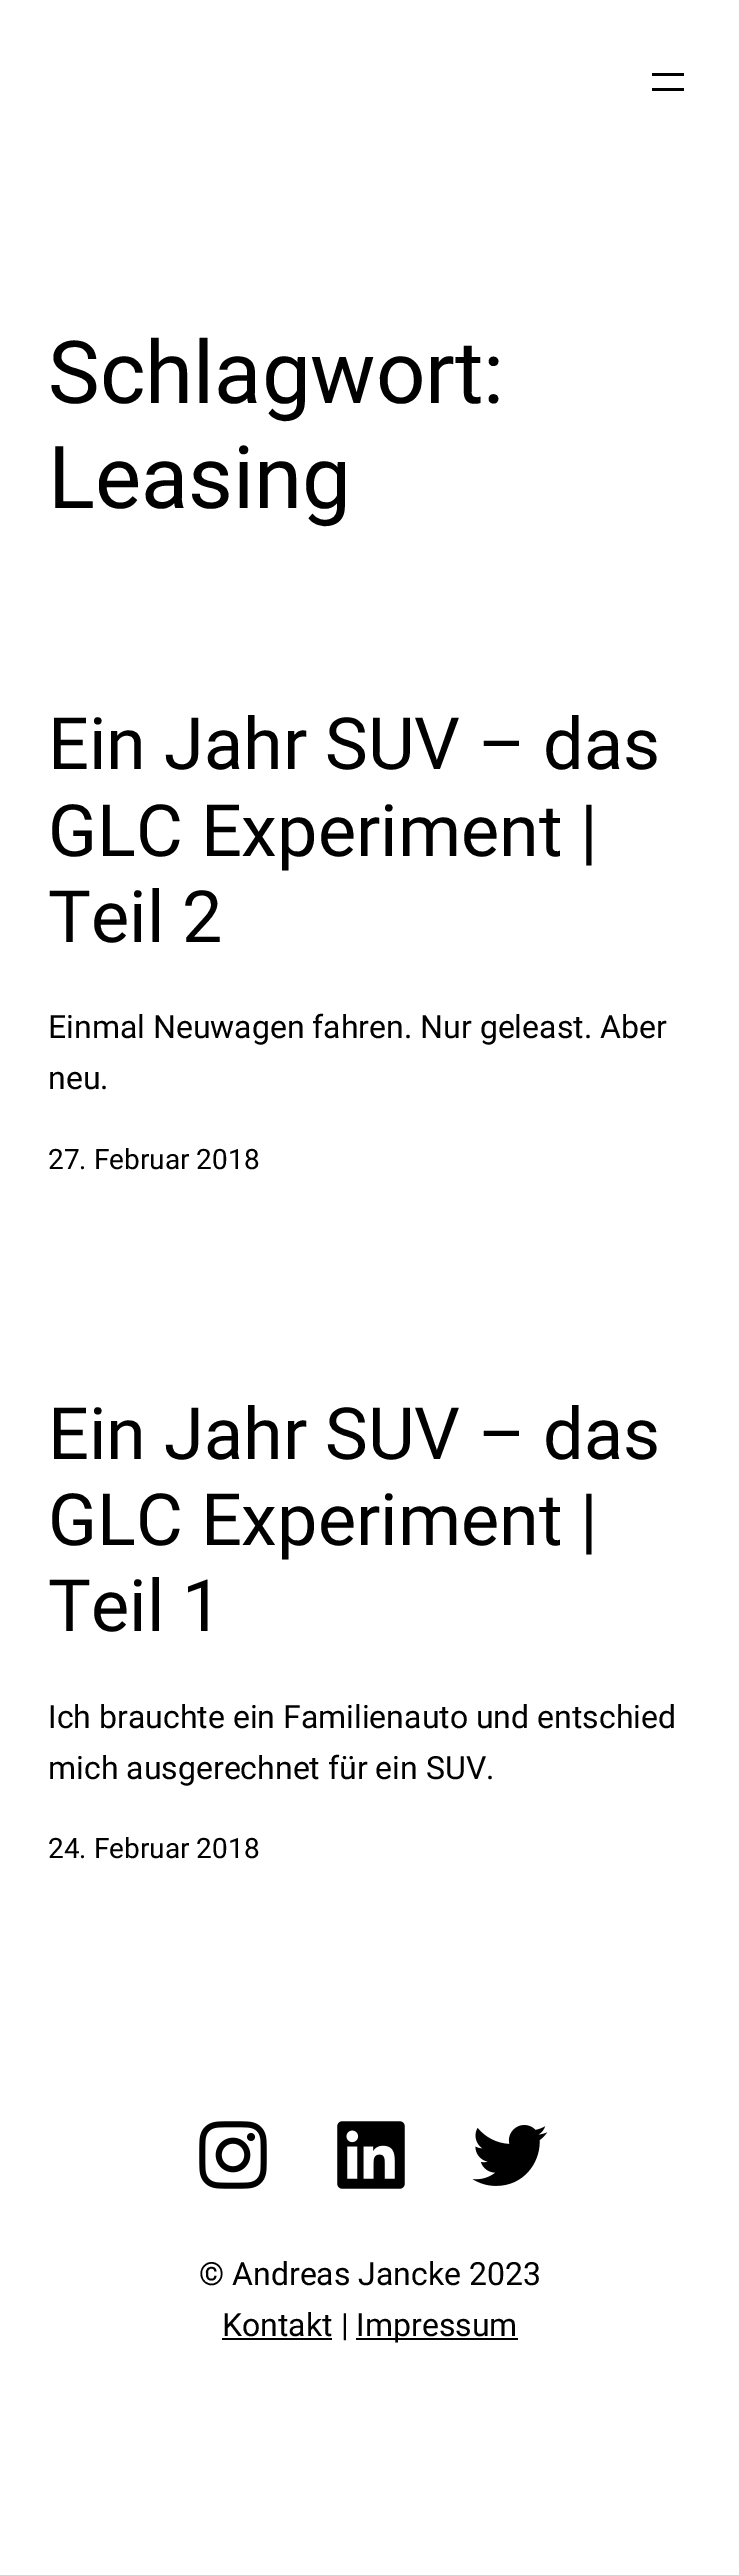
%!PS-Adobe-3.0
%%BoundingBox: 0 0 739 2575
%%LanguageLevel: 3
%%Pages: 1
%%EndComments
%%BeginProlog
/setink { dup -16 bitshift 255 div exch dup -8 bitshift 255 and 255 div exch 255 and 255 div setrgbcolor } def
/usefont { [ exch dup neg 0 0 3 -1 roll 0 0 ] selectfont } def
/drawimage { 5 dict begin { /h /w /y /x /name } { exch def } forall
  gsave x y translate w h scale
  w h 8 [w 0 0 h 0 0] name (r) file false 3 colorimage grestore end } def
%%EndProlog
%%BeginSetup
<< /PageSize [739 2575] >> setpagedevice
%%EndSetup
%%Page: 1 1
0 2575 translate 1 -1 scale
4 setmiterlimit
16#FFFFFF setink
0 0 739 2575 rectfill
16#000000 setink
652 73 32 3 rectfill
652 88 32 3 rectfill
/Roboto-Regular 87 usefont
48 403 moveto (Schlagwort:) show
48 508 moveto (Leasing) show
/Roboto-Regular 72 usefont
[
    [(Ein Jahr SUV – das) 48 769]
    [(GLC Experiment |) 48 856]
    [(Teil 2) 48 942]
] { aload pop moveto show } forall
/Roboto-Regular 32 usefont
48 1038 moveto (Einmal Neuwagen fahren. Nur geleast. Aber) show
48 1089 moveto (neu.) show
/Roboto-Regular 28 usefont
48 1169 moveto (27. Februar 2018) show
/Roboto-Regular 72 usefont
[
    [(Ein Jahr SUV – das) 48 1459]
    [(GLC Experiment |) 48 1545]
    [(Teil 1) 48 1631]
] { aload pop moveto show } forall
/Roboto-Regular 32 usefont
48 1728 moveto (Ich brauchte ein Familienauto und entschied) show
48 1779 moveto (mich ausgerechnet für ein SUV.) show
/Roboto-Regular 28 usefont
48 1858 moveto (24. Februar 2018) show
(img1.raw) 199 2121 68 68 drawimage
(img2.raw) 337 2121 68 68 drawimage
(img3.raw) 472 2125 76 61 drawimage
/Roboto-Regular 32 usefont
199 2285 moveto (© Andreas Jancke 2023) show
222 2338 110 2 rectfill
222 2336 moveto (Kontakt |) show
356 2338 162 2 rectfill
356 2336 moveto (Impressum) show
showpage
%%EOF
